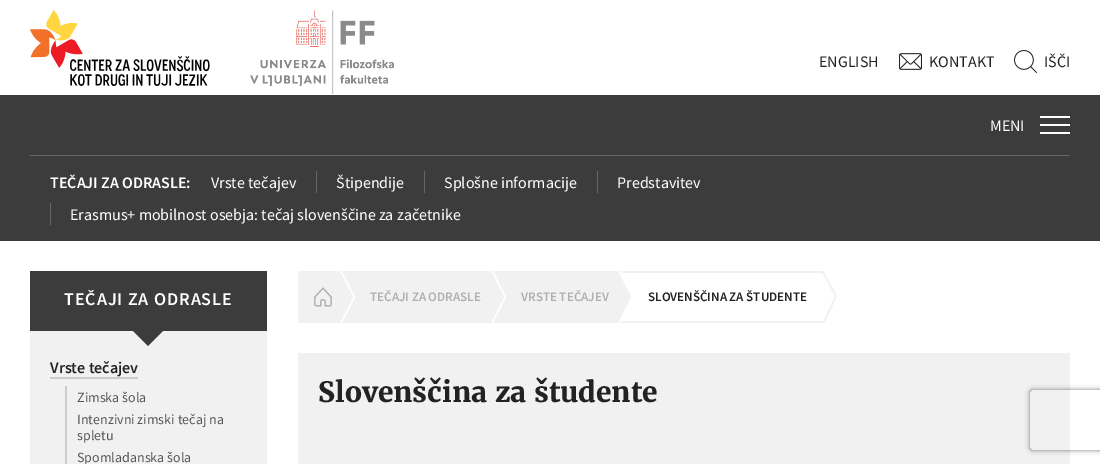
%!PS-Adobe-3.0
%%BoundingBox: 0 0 1100 464
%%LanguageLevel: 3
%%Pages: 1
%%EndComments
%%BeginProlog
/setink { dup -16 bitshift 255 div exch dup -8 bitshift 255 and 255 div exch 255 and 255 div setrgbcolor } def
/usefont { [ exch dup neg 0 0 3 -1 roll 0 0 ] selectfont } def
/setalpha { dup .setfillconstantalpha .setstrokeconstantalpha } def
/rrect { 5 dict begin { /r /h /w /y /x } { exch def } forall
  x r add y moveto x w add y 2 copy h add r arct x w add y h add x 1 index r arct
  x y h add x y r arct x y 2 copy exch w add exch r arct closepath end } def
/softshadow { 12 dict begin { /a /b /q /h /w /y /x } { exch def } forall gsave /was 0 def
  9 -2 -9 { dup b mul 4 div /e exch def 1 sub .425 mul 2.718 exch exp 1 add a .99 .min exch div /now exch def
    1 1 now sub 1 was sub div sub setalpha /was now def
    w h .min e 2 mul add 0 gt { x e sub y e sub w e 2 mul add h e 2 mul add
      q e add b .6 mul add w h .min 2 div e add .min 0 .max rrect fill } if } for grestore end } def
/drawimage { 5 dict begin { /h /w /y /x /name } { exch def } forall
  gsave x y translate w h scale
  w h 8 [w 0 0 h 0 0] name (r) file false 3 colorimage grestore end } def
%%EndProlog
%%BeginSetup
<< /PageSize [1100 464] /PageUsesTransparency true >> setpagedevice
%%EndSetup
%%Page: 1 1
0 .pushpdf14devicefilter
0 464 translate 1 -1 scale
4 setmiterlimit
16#FFFFFF setink
0 0 1100 464 rectfill
(img1.raw) 30 10 180 76 drawimage
(img2.raw) 250 10 144 84 drawimage
/SourceSansPro-Regular 16 usefont
16#222222 setink
819 67 moveto (ENGLISH) show
(img3.raw) 899 53 23 17 drawimage
929 67 moveto (KONTAKT) show
(img4.raw) 1014 50 23 23 drawimage
1044 67 moveto (IŠČI) show
16#3C3C3C setink
0 95 1100 146 rectfill
16#FFFFFF setink
990 131 moveto (MENI) show
[
    [1040 124 30 2 16#FFFFFF]
    [1040 116 30 2 16#FFFFFF]
    [1040 132 30 2 16#FFFFFF]
    [30 155 1040 1 16#666666]
] { aload pop setink rectfill } forall
/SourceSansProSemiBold-SemiBold 16 usefont
16#FFFFFF setink
50 188 moveto (TEČAJI ZA ODRASLE:) show
/SourceSansPro-Regular 16 usefont
211 188 moveto (Vrste tečajev) show
16#666666 setink
316 171 1 22 rectfill
16#FFFFFF setink
336 188 moveto (Štipendije) show
16#666666 setink
424 171 1 22 rectfill
16#FFFFFF setink
444 188 moveto (Splošne informacije) show
16#666666 setink
597 171 1 22 rectfill
16#FFFFFF setink
617 188 moveto (Predstavitev) show
16#666666 setink
50 203 1 22 rectfill
16#FFFFFF setink
70 220 moveto (Erasmus+ mobilnost osebja: tečaj slovenščine za začetnike) show
16#3C3C3C setink
30 271 237 60 rectfill
/SourceSansProSemiBold-SemiBold 18 usefont
16#FFFFFF setink
64 305 moveto 0.9 0 (TEČAJI ZA ODRASLE) ashow
16#F2F1F1 setink
30 331 237 133 rectfill
16#3C3C3C setink
133 331 moveto 163 331 lineto 148 346 lineto closepath fill
/SourceSansProSemiBold-SemiBold 16 usefont
16#222222 setink
50 373 moveto (Vrste tečajev) show
16#CCCCCC setink
50 377 88 2 rectfill
65 386 2 78 rectfill
/SourceSansPro-Regular 14 usefont
16#555555 setink
[
    [(Zimska šola) 77 402]
    [(Intenzivni zimski tečaj na) 77 424]
    [(spletu) 77 440]
    [(Spomladanska šola) 77 462]
] { aload pop moveto show } forall
16#F2F1F1 setink
298 271 320 52 rectfill
(img5.raw) 314 287 18 20 drawimage
(img6.raw) 340 271 15 52 drawimage
/SourceSansProSemiBold-SemiBold 13 usefont
16#AFAFAF setink
370 301 moveto (TEČAJI ZA ODRASLE) show
(img6.raw) 491 271 15 52 drawimage
521 301 moveto (VRSTE TEČAJEV) show
(img7.raw) 618 271 204 52 drawimage
(img8.raw) 618 271 13 52 drawimage
16#222222 setink
648 301 moveto (SLOVENŠČINA ZA ŠTUDENTE) show
(img9.raw) 822 271 15 52 drawimage
16#F2F1F1 setink
298 353 772 111 rectfill
/Merriweather-Bold 28 usefont
16#222222 setink
318 402 moveto (Slovenščina za študente) show
gsave
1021 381 moveto 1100 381 lineto 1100 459 lineto 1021 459 lineto closepath 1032 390 moveto 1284 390 lineto 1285 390 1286 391 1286 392 curveto 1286 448 lineto 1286 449 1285 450 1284 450 curveto 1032 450 lineto 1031 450 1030 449 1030 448 curveto 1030 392 lineto 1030 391 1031 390 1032 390 curveto closepath eoclip newpath
16#808080 setink
1030 390 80 60 2 2.5 1 softshadow
grestore
.poppdf14devicefilter showpage
%%EOF
